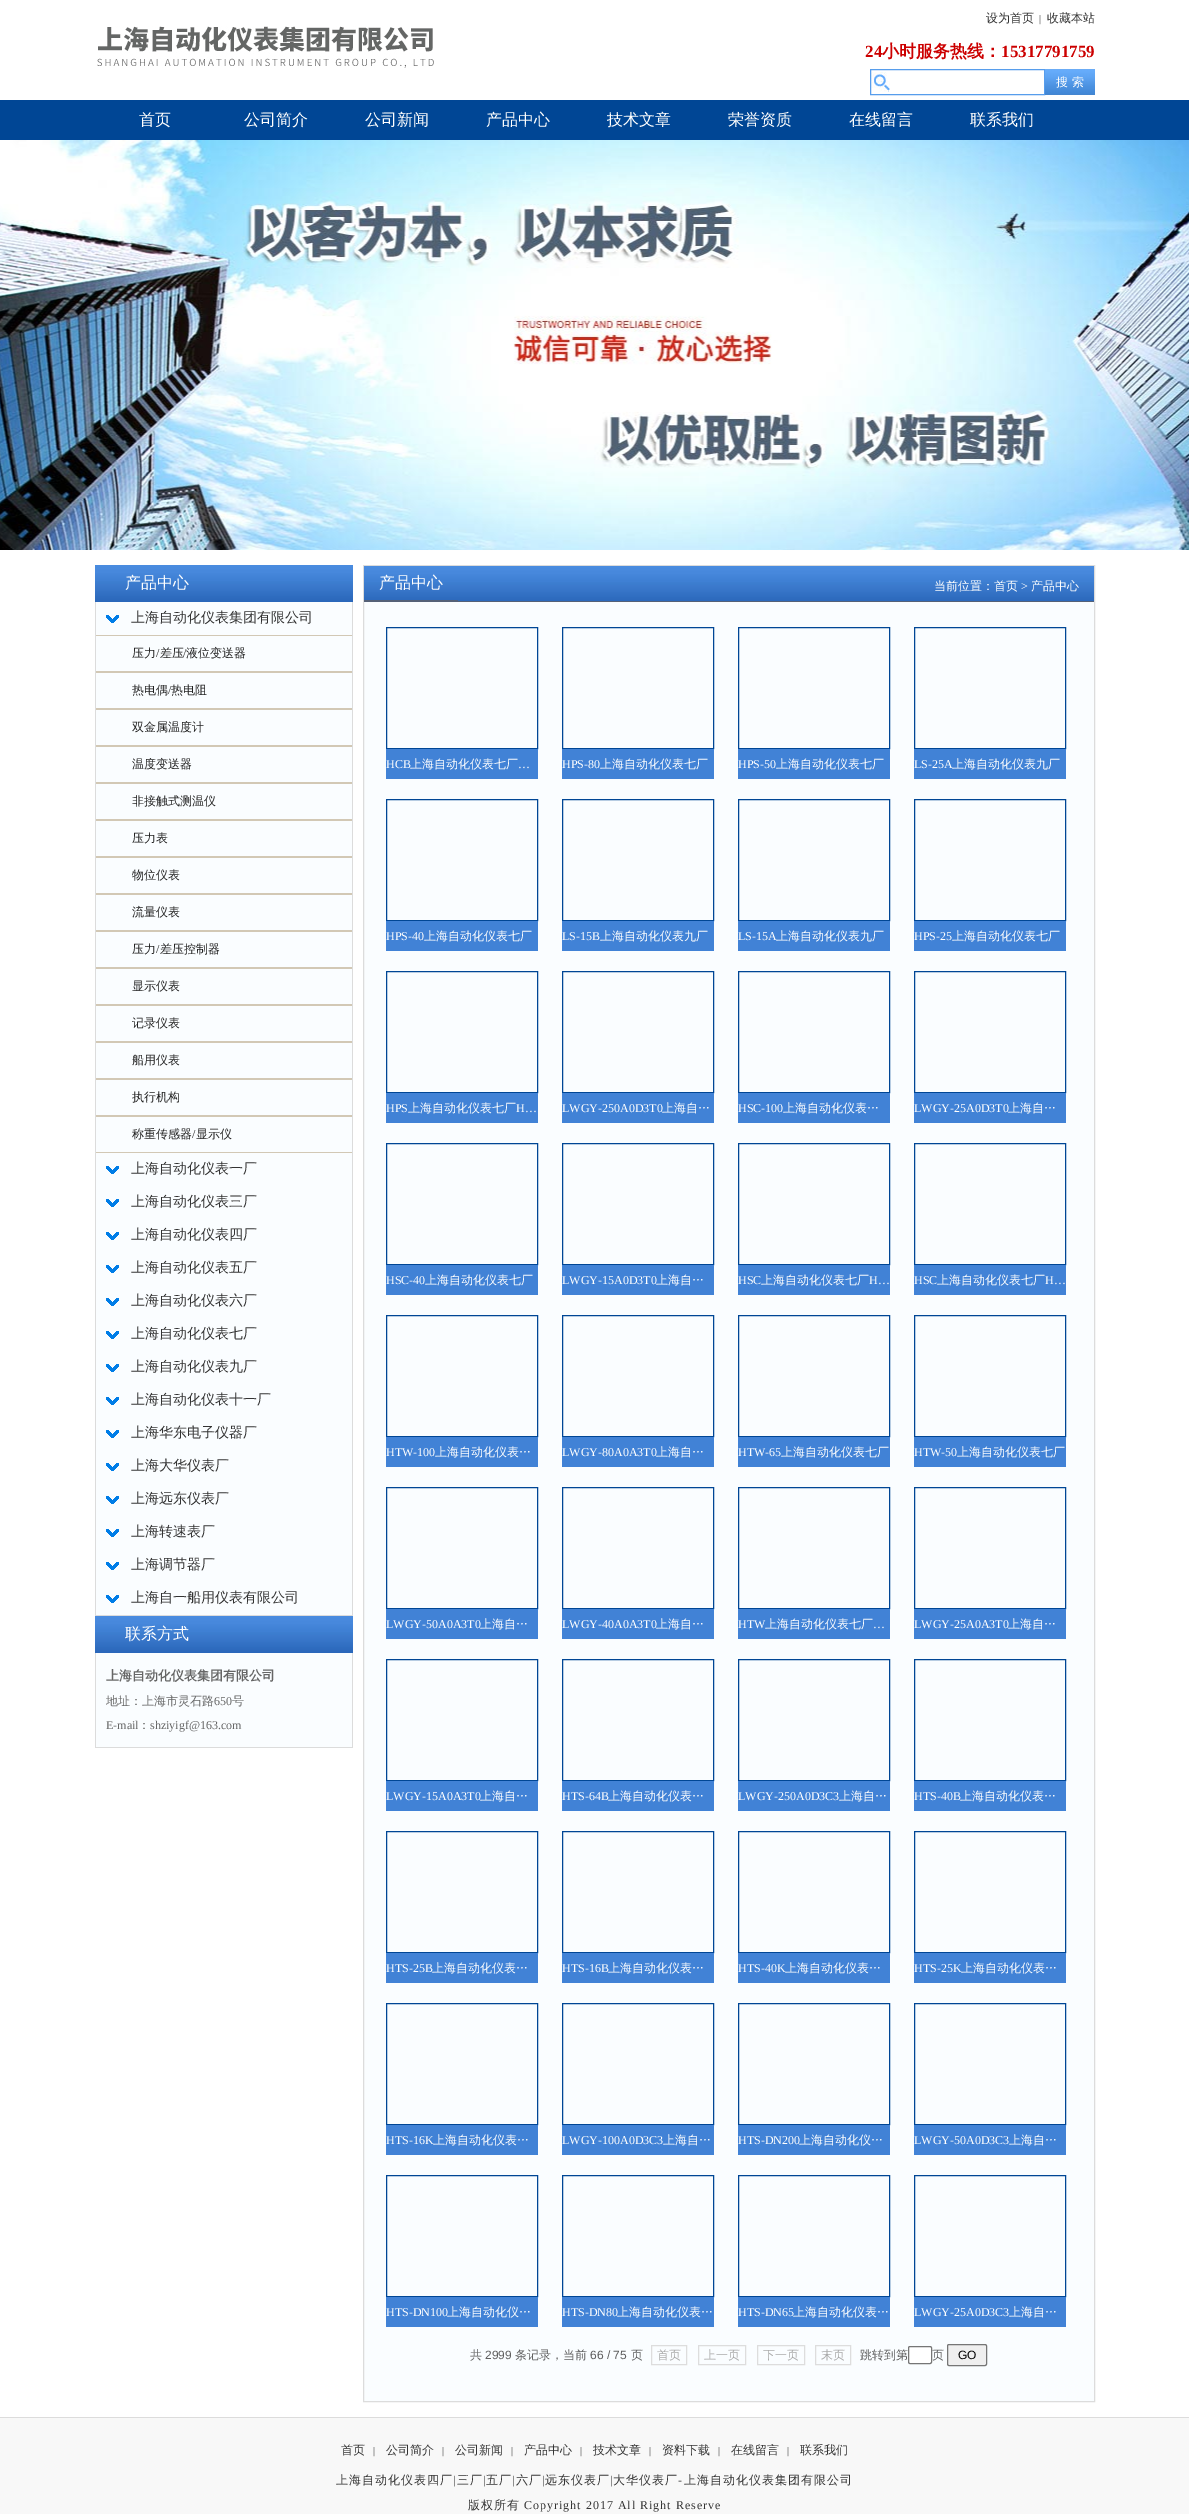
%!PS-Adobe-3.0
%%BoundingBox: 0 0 1189 2514
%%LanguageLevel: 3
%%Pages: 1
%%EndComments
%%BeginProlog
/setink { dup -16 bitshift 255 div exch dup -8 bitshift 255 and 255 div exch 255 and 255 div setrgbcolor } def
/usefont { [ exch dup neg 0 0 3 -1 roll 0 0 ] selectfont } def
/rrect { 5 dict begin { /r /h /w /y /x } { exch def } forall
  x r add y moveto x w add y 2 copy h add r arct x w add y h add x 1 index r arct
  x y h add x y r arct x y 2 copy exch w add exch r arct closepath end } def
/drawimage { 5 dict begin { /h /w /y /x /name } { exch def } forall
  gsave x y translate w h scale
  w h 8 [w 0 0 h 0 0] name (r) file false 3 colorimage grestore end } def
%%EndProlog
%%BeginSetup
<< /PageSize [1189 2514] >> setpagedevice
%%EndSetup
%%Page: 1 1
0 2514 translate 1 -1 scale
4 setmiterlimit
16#FFFFFF setink
0 0 1189 2514 rectfill
(img1.raw) 97 26 337 42 drawimage
/WenQuanYiZenHei-Medium 12 usefont
16#333333 setink
986 22 moveto (设为首页) show
/LiberationSerif-Regular 10 usefont
1039 22 moveto (|) show
/WenQuanYiZenHei-Medium 12 usefont
1047 22 moveto (收藏本站) show
/LiberationSerif-Bold 17 usefont
16#CC0000 setink
865 57 moveto (24) show
/WenQuanYiZenHei-Bold 17 usefont
882 57 moveto (小时服务热线：) show
/LiberationSerif-Bold 17 usefont
1001 57 moveto (15317791759) show
(img2.raw) 871 72 19 20 drawimage
16#579DEC setink
870.5 69.5 174 25 rectstroke
(img3.raw) 1045 69 50 26 drawimage
/WenQuanYiZenHei-Medium 12 usefont
16#FFFFFF setink
1056 86 moveto (搜 索) show
16#004695 setink
0 100 1189 40 rectfill
/WenQuanYiZenHei-Medium 16 usefont
16#FFFFFF setink
[
    [(首页) 139 125]
    [(公司简介) 244 125]
    [(公司新闻) 365 125]
    [(产品中心) 486 125]
    [(技术文章) 607 125]
    [(荣誉资质) 728 125]
    [(在线留言) 849 125]
    [(联系我们) 970 125]
] { aload pop moveto show } forall
(img4.raw) 0 140 1189 410 drawimage
(img5.raw) 95 565 258 37 drawimage
125 588 moveto (产品中心) show
[
    [96 602 256 1013 16#FAFDFF]
    [352 602 1 1014 16#DCDCDC]
    [95 1615 258 1 16#DCDCDC]
    [95 602 1 1014 16#DCDCDC]
] { aload pop setink rectfill } forall
(img6.raw) 106 615 13 8 drawimage
/WenQuanYiZenHei-Medium 14 usefont
16#333333 setink
131 622 moveto (上海自动化仪表集团有限公司) show
16#D2C8B5 setink
96 635 256 1 rectfill
96 671 256 2 rectfill
/WenQuanYiZenHei-Medium 12 usefont
16#222222 setink
132 657 moveto (压力 差压) show
/LiberationSerif-Regular 12 usefont
183 657 moveto (/) show
/WenQuanYiZenHei-Medium 12 usefont
186 657 moveto (液位变送器) show
/LiberationSerif-Regular 12 usefont
156 657 moveto (/) show
16#D2C8B5 setink
96 708 256 2 rectfill
/WenQuanYiZenHei-Medium 12 usefont
16#222222 setink
132 694 moveto (热电偶) show
/LiberationSerif-Regular 12 usefont
168 694 moveto (/) show
/WenQuanYiZenHei-Medium 12 usefont
171 694 moveto (热电阻) show
16#D2C8B5 setink
96 745 256 2 rectfill
16#222222 setink
132 731 moveto (双金属温度计) show
16#D2C8B5 setink
96 782 256 2 rectfill
16#222222 setink
132 768 moveto (温度变送器) show
16#D2C8B5 setink
96 819 256 2 rectfill
16#222222 setink
132 805 moveto (非接触式测温仪) show
16#D2C8B5 setink
96 856 256 2 rectfill
16#222222 setink
132 842 moveto (压力表) show
16#D2C8B5 setink
96 893 256 2 rectfill
16#222222 setink
132 879 moveto (物位仪表) show
16#D2C8B5 setink
96 930 256 2 rectfill
16#222222 setink
132 916 moveto (流量仪表) show
16#D2C8B5 setink
96 967 256 2 rectfill
16#222222 setink
132 953 moveto (压力 差压控制器) show
/LiberationSerif-Regular 12 usefont
156 953 moveto (/) show
16#D2C8B5 setink
96 1004 256 2 rectfill
/WenQuanYiZenHei-Medium 12 usefont
16#222222 setink
132 990 moveto (显示仪表) show
16#D2C8B5 setink
96 1041 256 2 rectfill
16#222222 setink
132 1027 moveto (记录仪表) show
16#D2C8B5 setink
96 1078 256 2 rectfill
16#222222 setink
132 1064 moveto (船用仪表) show
16#D2C8B5 setink
96 1115 256 2 rectfill
16#222222 setink
132 1101 moveto (执行机构) show
16#D2C8B5 setink
96 1152 256 1 rectfill
16#222222 setink
132 1138 moveto (称重传感器 显示仪) show
/LiberationSerif-Regular 12 usefont
192 1138 moveto (/) show
(img6.raw) 106 1166 13 8 drawimage
/WenQuanYiZenHei-Medium 14 usefont
16#333333 setink
131 1173 moveto (上海自动化仪表一厂) show
(img6.raw) 106 1199 13 8 drawimage
131 1206 moveto (上海自动化仪表三厂) show
(img6.raw) 106 1232 13 8 drawimage
131 1239 moveto (上海自动化仪表四厂) show
(img6.raw) 106 1265 13 8 drawimage
131 1272 moveto (上海自动化仪表五厂) show
(img6.raw) 106 1298 13 8 drawimage
131 1305 moveto (上海自动化仪表六厂) show
(img6.raw) 106 1331 13 8 drawimage
131 1338 moveto (上海自动化仪表七厂) show
(img6.raw) 106 1364 13 8 drawimage
131 1371 moveto (上海自动化仪表九厂) show
(img6.raw) 106 1397 13 8 drawimage
131 1404 moveto (上海自动化仪表十一厂) show
(img6.raw) 106 1430 13 8 drawimage
131 1437 moveto (上海华东电子仪器厂) show
(img6.raw) 106 1463 13 8 drawimage
131 1470 moveto (上海大华仪表厂) show
(img6.raw) 106 1496 13 8 drawimage
131 1503 moveto (上海远东仪表厂) show
(img6.raw) 106 1529 13 8 drawimage
131 1536 moveto (上海转速表厂) show
(img6.raw) 106 1562 13 8 drawimage
131 1569 moveto (上海调节器厂) show
(img6.raw) 106 1595 13 8 drawimage
131 1602 moveto (上海自一船用仪表有限公司) show
(img5.raw) 95 1616 258 37 drawimage
/WenQuanYiZenHei-Medium 16 usefont
16#FFFFFF setink
125 1639 moveto (联系方式) show
[
    [96 1653 256 94 16#FAFDFF]
    [352 1653 1 95 16#DCDCDC]
    [95 1747 258 1 16#DCDCDC]
    [95 1653 1 95 16#DCDCDC]
] { aload pop setink rectfill } forall
/WenQuanYiZenHei-Bold 13 usefont
16#666666 setink
106 1680 moveto (上海自动化仪表集团有限公司) show
/WenQuanYiZenHei-Medium 12 usefont
106 1705 moveto (地址：上海市灵石路) show
/LiberationSerif-Regular 12 usefont
214 1705 moveto (650) show
/WenQuanYiZenHei-Medium 12 usefont
232 1705 moveto (号) show
/LiberationSerif-Regular 12 usefont
106 1729 moveto (E-mail) show
/WenQuanYiZenHei-Medium 12 usefont
138 1729 moveto (：) show
/LiberationSerif-Regular 12 usefont
150 1729 moveto (shziyigf@163.com) show
16#FAFDFF setink
364 602 730 1799 rectfill
16#DCDCDC setink
363.5 565.5 731 1836 rectstroke
(img7.raw) 364 566 730 35 drawimage
16#556177 setink
458 601 636 1 rectfill
364 600 94 2 rectfill
/WenQuanYiZenHei-Medium 16 usefont
16#FFFFFF setink
379 588 moveto (产品中心) show
/WenQuanYiZenHei-Medium 12 usefont
934 590 moveto (当前位置：首页) show
/LiberationSerif-Regular 12 usefont
1021 590 moveto (>) show
/WenQuanYiZenHei-Medium 12 usefont
1031 590 moveto (产品中心) show
16#004695 setink
386.5 627.5 151 121 rectstroke
16#4182D6 setink
386 749 152 30 rectfill
/LiberationSerif-Regular 12 usefont
16#FFFFFF setink
386 768 moveto (HCB) show
/WenQuanYiZenHei-Medium 12 usefont
410 768 moveto (上海自动化仪表七厂) show
/LiberationSerif-Regular 12 usefont
518 768 moveto (…) show
16#004695 setink
562.5 627.5 151 121 rectstroke
16#4182D6 setink
562 749 152 30 rectfill
16#FFFFFF setink
562 768 moveto (HPS-80) show
/WenQuanYiZenHei-Medium 12 usefont
600 768 moveto (上海自动化仪表七厂) show
16#004695 setink
738.5 627.5 151 121 rectstroke
16#4182D6 setink
738 749 152 30 rectfill
/LiberationSerif-Regular 12 usefont
16#FFFFFF setink
738 768 moveto (HPS-50) show
/WenQuanYiZenHei-Medium 12 usefont
776 768 moveto (上海自动化仪表七厂) show
16#004695 setink
914.5 627.5 151 121 rectstroke
16#4182D6 setink
914 749 152 30 rectfill
/LiberationSerif-Regular 12 usefont
16#FFFFFF setink
914 768 moveto (LS-25A) show
/WenQuanYiZenHei-Medium 12 usefont
952 768 moveto (上海自动化仪表九厂) show
16#004695 setink
386.5 799.5 151 121 rectstroke
16#4182D6 setink
386 921 152 30 rectfill
/LiberationSerif-Regular 12 usefont
16#FFFFFF setink
386 940 moveto (HPS-40) show
/WenQuanYiZenHei-Medium 12 usefont
424 940 moveto (上海自动化仪表七厂) show
16#004695 setink
562.5 799.5 151 121 rectstroke
16#4182D6 setink
562 921 152 30 rectfill
/LiberationSerif-Regular 12 usefont
16#FFFFFF setink
562 940 moveto (LS-15B) show
/WenQuanYiZenHei-Medium 12 usefont
600 940 moveto (上海自动化仪表九厂) show
16#004695 setink
738.5 799.5 151 121 rectstroke
16#4182D6 setink
738 921 152 30 rectfill
/LiberationSerif-Regular 12 usefont
16#FFFFFF setink
738 940 moveto (LS-15A) show
/WenQuanYiZenHei-Medium 12 usefont
776 940 moveto (上海自动化仪表九厂) show
16#004695 setink
914.5 799.5 151 121 rectstroke
16#4182D6 setink
914 921 152 30 rectfill
/LiberationSerif-Regular 12 usefont
16#FFFFFF setink
914 940 moveto (HPS-25) show
/WenQuanYiZenHei-Medium 12 usefont
952 940 moveto (上海自动化仪表七厂) show
16#004695 setink
386.5 971.5 151 121 rectstroke
16#4182D6 setink
386 1093 152 30 rectfill
/LiberationSerif-Regular 12 usefont
16#FFFFFF setink
386 1112 moveto (HPS) show
/WenQuanYiZenHei-Medium 12 usefont
408 1112 moveto (上海自动化仪表七厂) show
/LiberationSerif-Regular 12 usefont
516 1112 moveto (H…) show
16#004695 setink
562.5 971.5 151 121 rectstroke
16#4182D6 setink
562 1093 152 30 rectfill
16#FFFFFF setink
562 1112 moveto (LWGY-250A0D3T0) show
/WenQuanYiZenHei-Medium 12 usefont
662 1112 moveto (上海自…) show
16#004695 setink
738.5 971.5 151 121 rectstroke
16#4182D6 setink
738 1093 152 30 rectfill
/LiberationSerif-Regular 12 usefont
16#FFFFFF setink
738 1112 moveto (HSC-100) show
/WenQuanYiZenHei-Medium 12 usefont
783 1112 moveto (上海自动化仪表…) show
16#004695 setink
914.5 971.5 151 121 rectstroke
16#4182D6 setink
914 1093 152 30 rectfill
/LiberationSerif-Regular 12 usefont
16#FFFFFF setink
914 1112 moveto (LWGY-25A0D3T0) show
/WenQuanYiZenHei-Medium 12 usefont
1008 1112 moveto (上海自…) show
16#004695 setink
386.5 1143.5 151 121 rectstroke
16#4182D6 setink
386 1265 152 30 rectfill
/LiberationSerif-Regular 12 usefont
16#FFFFFF setink
386 1284 moveto (HSC-40) show
/WenQuanYiZenHei-Medium 12 usefont
425 1284 moveto (上海自动化仪表七厂) show
16#004695 setink
562.5 1143.5 151 121 rectstroke
16#4182D6 setink
562 1265 152 30 rectfill
/LiberationSerif-Regular 12 usefont
16#FFFFFF setink
562 1284 moveto (LWGY-15A0D3T0) show
/WenQuanYiZenHei-Medium 12 usefont
656 1284 moveto (上海自…) show
16#004695 setink
738.5 1143.5 151 121 rectstroke
16#4182D6 setink
738 1265 152 30 rectfill
/LiberationSerif-Regular 12 usefont
16#FFFFFF setink
738 1284 moveto (HSC) show
/WenQuanYiZenHei-Medium 12 usefont
761 1284 moveto (上海自动化仪表七厂) show
/LiberationSerif-Regular 12 usefont
869 1284 moveto (H…) show
16#004695 setink
914.5 1143.5 151 121 rectstroke
16#4182D6 setink
914 1265 152 30 rectfill
16#FFFFFF setink
914 1284 moveto (HSC) show
/WenQuanYiZenHei-Medium 12 usefont
937 1284 moveto (上海自动化仪表七厂) show
/LiberationSerif-Regular 12 usefont
1045 1284 moveto (H…) show
16#004695 setink
386.5 1315.5 151 121 rectstroke
16#4182D6 setink
386 1437 152 30 rectfill
16#FFFFFF setink
386 1456 moveto (HTW-100) show
/WenQuanYiZenHei-Medium 12 usefont
435 1456 moveto (上海自动化仪表…) show
16#004695 setink
562.5 1315.5 151 121 rectstroke
16#4182D6 setink
562 1437 152 30 rectfill
/LiberationSerif-Regular 12 usefont
16#FFFFFF setink
562 1456 moveto (LWGY-80A0A3T0) show
/WenQuanYiZenHei-Medium 12 usefont
656 1456 moveto (上海自…) show
16#004695 setink
738.5 1315.5 151 121 rectstroke
16#4182D6 setink
738 1437 152 30 rectfill
/LiberationSerif-Regular 12 usefont
16#FFFFFF setink
738 1456 moveto (HTW-65) show
/WenQuanYiZenHei-Medium 12 usefont
781 1456 moveto (上海自动化仪表七厂) show
16#004695 setink
914.5 1315.5 151 121 rectstroke
16#4182D6 setink
914 1437 152 30 rectfill
/LiberationSerif-Regular 12 usefont
16#FFFFFF setink
914 1456 moveto (HTW-50) show
/WenQuanYiZenHei-Medium 12 usefont
957 1456 moveto (上海自动化仪表七厂) show
16#004695 setink
386.5 1487.5 151 121 rectstroke
16#4182D6 setink
386 1609 152 30 rectfill
/LiberationSerif-Regular 12 usefont
16#FFFFFF setink
386 1628 moveto (LWGY-50A0A3T0) show
/WenQuanYiZenHei-Medium 12 usefont
480 1628 moveto (上海自…) show
16#004695 setink
562.5 1487.5 151 121 rectstroke
16#4182D6 setink
562 1609 152 30 rectfill
/LiberationSerif-Regular 12 usefont
16#FFFFFF setink
562 1628 moveto (LWGY-40A0A3T0) show
/WenQuanYiZenHei-Medium 12 usefont
656 1628 moveto (上海自…) show
16#004695 setink
738.5 1487.5 151 121 rectstroke
16#4182D6 setink
738 1609 152 30 rectfill
/LiberationSerif-Regular 12 usefont
16#FFFFFF setink
738 1628 moveto (HTW) show
/WenQuanYiZenHei-Medium 12 usefont
765 1628 moveto (上海自动化仪表七厂) show
/LiberationSerif-Regular 12 usefont
873 1628 moveto (…) show
16#004695 setink
914.5 1487.5 151 121 rectstroke
16#4182D6 setink
914 1609 152 30 rectfill
16#FFFFFF setink
914 1628 moveto (LWGY-25A0A3T0) show
/WenQuanYiZenHei-Medium 12 usefont
1008 1628 moveto (上海自…) show
16#004695 setink
386.5 1659.5 151 121 rectstroke
16#4182D6 setink
386 1781 152 30 rectfill
/LiberationSerif-Regular 12 usefont
16#FFFFFF setink
386 1800 moveto (LWGY-15A0A3T0) show
/WenQuanYiZenHei-Medium 12 usefont
480 1800 moveto (上海自…) show
16#004695 setink
562.5 1659.5 151 121 rectstroke
16#4182D6 setink
562 1781 152 30 rectfill
/LiberationSerif-Regular 12 usefont
16#FFFFFF setink
562 1800 moveto (HTS-64B) show
/WenQuanYiZenHei-Medium 12 usefont
608 1800 moveto (上海自动化仪表…) show
16#004695 setink
738.5 1659.5 151 121 rectstroke
16#4182D6 setink
738 1781 152 30 rectfill
/LiberationSerif-Regular 12 usefont
16#FFFFFF setink
738 1800 moveto (LWGY-250A0D3C3) show
/WenQuanYiZenHei-Medium 12 usefont
839 1800 moveto (上海自…) show
16#004695 setink
914.5 1659.5 151 121 rectstroke
16#4182D6 setink
914 1781 152 30 rectfill
/LiberationSerif-Regular 12 usefont
16#FFFFFF setink
914 1800 moveto (HTS-40B) show
/WenQuanYiZenHei-Medium 12 usefont
960 1800 moveto (上海自动化仪表…) show
16#004695 setink
386.5 1831.5 151 121 rectstroke
16#4182D6 setink
386 1953 152 30 rectfill
/LiberationSerif-Regular 12 usefont
16#FFFFFF setink
386 1972 moveto (HTS-25B) show
/WenQuanYiZenHei-Medium 12 usefont
432 1972 moveto (上海自动化仪表…) show
16#004695 setink
562.5 1831.5 151 121 rectstroke
16#4182D6 setink
562 1953 152 30 rectfill
/LiberationSerif-Regular 12 usefont
16#FFFFFF setink
562 1972 moveto (HTS-16B) show
/WenQuanYiZenHei-Medium 12 usefont
608 1972 moveto (上海自动化仪表…) show
16#004695 setink
738.5 1831.5 151 121 rectstroke
16#4182D6 setink
738 1953 152 30 rectfill
/LiberationSerif-Regular 12 usefont
16#FFFFFF setink
738 1972 moveto (HTS-40K) show
/WenQuanYiZenHei-Medium 12 usefont
785 1972 moveto (上海自动化仪表…) show
16#004695 setink
914.5 1831.5 151 121 rectstroke
16#4182D6 setink
914 1953 152 30 rectfill
/LiberationSerif-Regular 12 usefont
16#FFFFFF setink
914 1972 moveto (HTS-25K) show
/WenQuanYiZenHei-Medium 12 usefont
961 1972 moveto (上海自动化仪表…) show
16#004695 setink
386.5 2003.5 151 121 rectstroke
16#4182D6 setink
386 2125 152 30 rectfill
/LiberationSerif-Regular 12 usefont
16#FFFFFF setink
386 2144 moveto (HTS-16K) show
/WenQuanYiZenHei-Medium 12 usefont
433 2144 moveto (上海自动化仪表…) show
16#004695 setink
562.5 2003.5 151 121 rectstroke
16#4182D6 setink
562 2125 152 30 rectfill
/LiberationSerif-Regular 12 usefont
16#FFFFFF setink
562 2144 moveto (LWGY-100A0D3C3) show
/WenQuanYiZenHei-Medium 12 usefont
663 2144 moveto (上海自…) show
16#004695 setink
738.5 2003.5 151 121 rectstroke
16#4182D6 setink
738 2125 152 30 rectfill
/LiberationSerif-Regular 12 usefont
16#FFFFFF setink
738 2144 moveto (HTS-DN200) show
/WenQuanYiZenHei-Medium 12 usefont
799 2144 moveto (上海自动化仪…) show
16#004695 setink
914.5 2003.5 151 121 rectstroke
16#4182D6 setink
914 2125 152 30 rectfill
/LiberationSerif-Regular 12 usefont
16#FFFFFF setink
914 2144 moveto (LWGY-50A0D3C3) show
/WenQuanYiZenHei-Medium 12 usefont
1009 2144 moveto (上海自…) show
16#004695 setink
386.5 2175.5 151 121 rectstroke
16#4182D6 setink
386 2297 152 30 rectfill
/LiberationSerif-Regular 12 usefont
16#FFFFFF setink
386 2316 moveto (HTS-DN100) show
/WenQuanYiZenHei-Medium 12 usefont
447 2316 moveto (上海自动化仪…) show
16#004695 setink
562.5 2175.5 151 121 rectstroke
16#4182D6 setink
562 2297 152 30 rectfill
/LiberationSerif-Regular 12 usefont
16#FFFFFF setink
562 2316 moveto (HTS-DN80) show
/WenQuanYiZenHei-Medium 12 usefont
617 2316 moveto (上海自动化仪表…) show
16#004695 setink
738.5 2175.5 151 121 rectstroke
16#4182D6 setink
738 2297 152 30 rectfill
/LiberationSerif-Regular 12 usefont
16#FFFFFF setink
738 2316 moveto (HTS-DN65) show
/WenQuanYiZenHei-Medium 12 usefont
793 2316 moveto (上海自动化仪表…) show
16#004695 setink
914.5 2175.5 151 121 rectstroke
16#4182D6 setink
914 2297 152 30 rectfill
/LiberationSerif-Regular 12 usefont
16#FFFFFF setink
914 2316 moveto (LWGY-25A0D3C3) show
/WenQuanYiZenHei-Medium 12 usefont
1009 2316 moveto (上海自…) show
16#606060 setink
470 2359 moveto (共) show
/LiberationSans-Regular 12 usefont
485 2359 moveto (2999) show
/WenQuanYiZenHei-Medium 12 usefont
515 2359 moveto (条记录，当前) show
/LiberationSans-Regular 12 usefont
590 2359 moveto (66 / 75) show
/WenQuanYiZenHei-Medium 12 usefont
631 2359 moveto (页) show
16#DDDDDD setink
651.5 2345.5 35 19 rectstroke
16#AAAAAA setink
657 2359 moveto (首页) show
16#DDDDDD setink
698.5 2345.5 47 19 rectstroke
16#AAAAAA setink
704 2359 moveto (上一页) show
16#DDDDDD setink
757.5 2345.5 47 19 rectstroke
16#AAAAAA setink
763 2359 moveto (下一页) show
16#DDDDDD setink
815.5 2345.5 35 19 rectstroke
16#AAAAAA setink
821 2359 moveto (末页) show
16#606060 setink
860 2359 moveto (跳转到第) show
16#FFFFFF setink
908.5 2346.5 23 17 1.5 rrect gsave fill grestore
16#767676 setink
stroke
16#606060 setink
932 2359 moveto (页) show
16#EFEFEF setink
947.5 2344.5 39 21 1.5 rrect gsave fill grestore
16#767676 setink
stroke
/LiberationSans-Regular 12 usefont
16#000000 setink
958 2359 moveto (GO) show
16#F8F8F8 setink
0 2418 1189 96 rectfill
16#DCDCDC setink
0 2417 1189 1 rectfill
/WenQuanYiZenHei-Medium 12 usefont
16#333333 setink
341 2454 moveto (首页) show
/LiberationSerif-Regular 10 usefont
373 2454 moveto (|) show
/WenQuanYiZenHei-Medium 12 usefont
386 2454 moveto (公司简介) show
/LiberationSerif-Regular 10 usefont
442 2454 moveto (|) show
/WenQuanYiZenHei-Medium 12 usefont
455 2454 moveto (公司新闻) show
/LiberationSerif-Regular 10 usefont
511 2454 moveto (|) show
/WenQuanYiZenHei-Medium 12 usefont
524 2454 moveto (产品中心) show
/LiberationSerif-Regular 10 usefont
580 2454 moveto (|) show
/WenQuanYiZenHei-Medium 12 usefont
593 2454 moveto (技术文章) show
/LiberationSerif-Regular 10 usefont
649 2454 moveto (|) show
/WenQuanYiZenHei-Medium 12 usefont
662 2454 moveto (资料下载) show
/LiberationSerif-Regular 10 usefont
718 2454 moveto (|) show
/WenQuanYiZenHei-Medium 12 usefont
731 2454 moveto (在线留言) show
/LiberationSerif-Regular 10 usefont
787 2454 moveto (|) show
/WenQuanYiZenHei-Medium 12 usefont
800 2454 moveto (联系我们) show
336 2484 moveto 1 0 (上海自动化仪表四厂) ashow
/LiberationSerif-Regular 12 usefont
453 2484 moveto 1 0 (|) ashow
/WenQuanYiZenHei-Medium 12 usefont
457 2484 moveto 1 0 (三厂) ashow
/LiberationSerif-Regular 12 usefont
483 2484 moveto 1 0 (|) ashow
/WenQuanYiZenHei-Medium 12 usefont
486 2484 moveto 1 0 (五厂) ashow
/LiberationSerif-Regular 12 usefont
512 2484 moveto 1 0 (|) ashow
/WenQuanYiZenHei-Medium 12 usefont
516 2484 moveto 1 0 (六厂) ashow
/LiberationSerif-Regular 12 usefont
542 2484 moveto 1 0 (|) ashow
/WenQuanYiZenHei-Medium 12 usefont
545 2484 moveto 1 0 (远东仪表厂) ashow
/LiberationSerif-Regular 12 usefont
610 2484 moveto 1 0 (|) ashow
/WenQuanYiZenHei-Medium 12 usefont
613 2484 moveto 1 0 (大华仪表厂) ashow
/LiberationSerif-Regular 12 usefont
678 2484 moveto 1 0 (-) ashow
/WenQuanYiZenHei-Medium 12 usefont
684 2484 moveto 1 0 (上海自动化仪表集团有限公司) ashow
468 2509 moveto 1 0 (版权所有) ashow
/LiberationSerif-Regular 12 usefont
524 2509 moveto 1 0 (Copyright 2017 All Right Reserve) ashow
showpage
%%EOF
